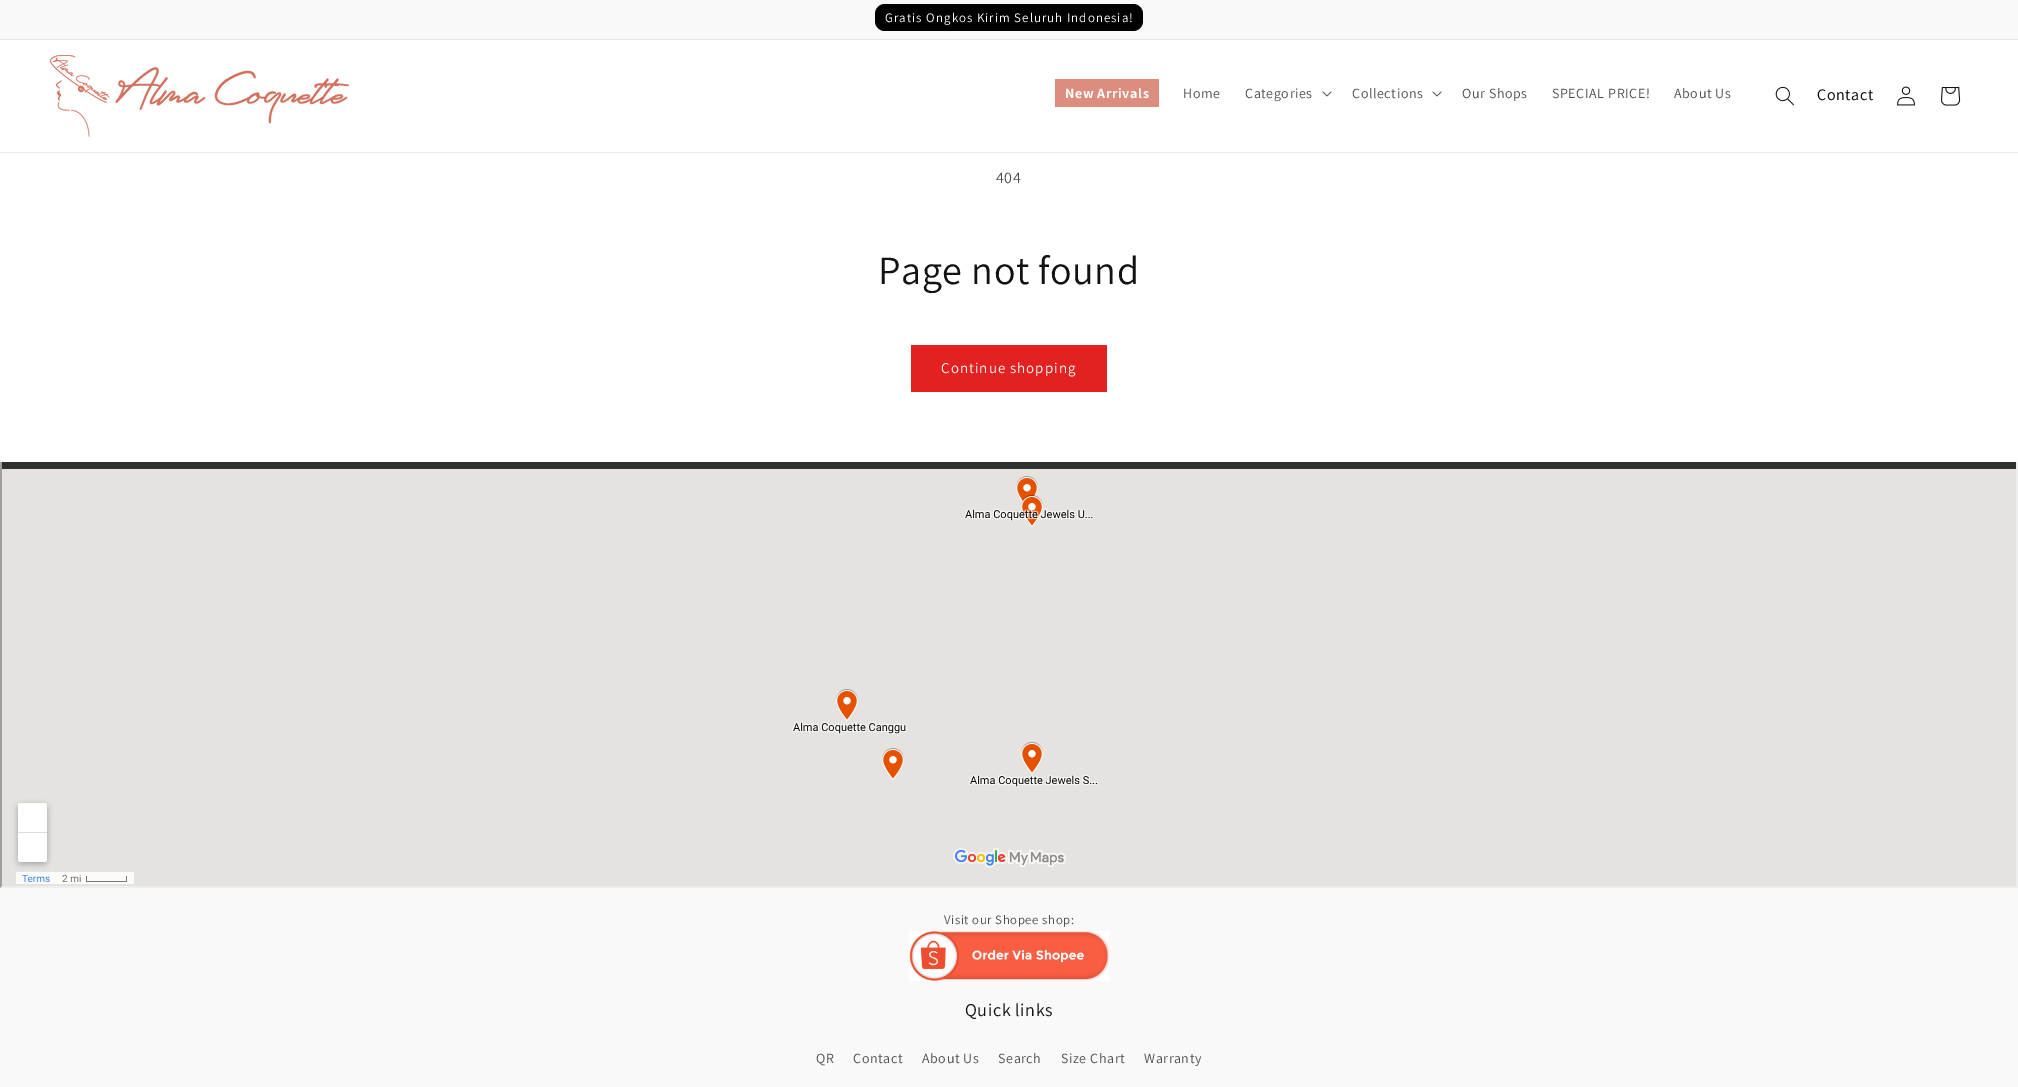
%!PS-Adobe-3.0
%%BoundingBox: 0 0 2018 1087
%%LanguageLevel: 3
%%Pages: 1
%%EndComments
%%BeginProlog
/setink { dup -16 bitshift 255 div exch dup -8 bitshift 255 and 255 div exch 255 and 255 div setrgbcolor } def
/usefont { [ exch dup neg 0 0 3 -1 roll 0 0 ] selectfont } def
/rrect { 5 dict begin { /r /h /w /y /x } { exch def } forall
  x r add y moveto x w add y 2 copy h add r arct x w add y h add x 1 index r arct
  x y h add x y r arct x y 2 copy exch w add exch r arct closepath end } def
/drawimage { 5 dict begin { /h /w /y /x /name } { exch def } forall
  gsave x y translate w h scale
  w h 8 [w 0 0 h 0 0] name (r) file false 3 colorimage grestore end } def
%%EndProlog
%%BeginSetup
<< /PageSize [2018 1087] >> setpagedevice
%%EndSetup
%%Page: 1 1
0 1087 translate 1 -1 scale
4 setmiterlimit
16#FFFFFF setink
0 0 2018 1087 rectfill
16#F9F9F9 setink
0 0 2018 39 rectfill
16#E7E7E7 setink
0 39 2018 1 rectfill
16#000000 setink
875 4 268 27 10 rrect fill
/Assistant-Regular 13 usefont
16#FFFFFF setink
885 22 moveto 1 0 (Gratis Ongkos Kirim Seluruh Indonesia!) ashow
16#ECECEC setink
0 152 2018 1 rectfill
(img1.raw) 50 55 299 82 drawimage
16#DC8D7D setink
1055 79 104 28 rectfill
/Assistant-Bold 14 usefont
16#FFFFFF setink
1065 98 moveto 0.6 0 (New Arrivals) ashow
/Assistant-Regular 14 usefont
16#4D4D4D setink
1183 98 moveto 0.6 0 (Home) ashow
1245 98 moveto 0.6 0 (Categories) ashow
(img2.raw) 1322 91 10 6 drawimage
1352 98 moveto 0.6 0 (Collections) ashow
(img2.raw) 1432 91 10 6 drawimage
1462 98 moveto 0.6 0 (Our Shops) ashow
1552 98 moveto 0.6 0 (SPECIAL PRICE!) ashow
1674 98 moveto 0.6 0 (About Us) ashow
(img3.raw) 1775 86 19 20 drawimage
/Assistant-Regular 16 usefont
16#000000 setink
1817 100 moveto 0.6 0 (Contact) ashow
(img4.raw) 1897 86 18 20 drawimage
(img5.raw) 1941 87 20 19 drawimage
16#4D4D4D setink
996 183 moveto 0.6 0 (404) ashow
/Assistant-Regular 40 usefont
16#121212 setink
878 284 moveto 0.6 0 (Page not found) ashow
16#E22120 setink
911 345 196 47 rectfill
/Assistant-Regular 15 usefont
16#FFFFFF setink
941 373 moveto 1 0 (Continue shopping) ashow
16#F9F9F9 setink
0 886 2018 201 rectfill
gsave
0 462 2018 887 rectclip
16#EEEEEE setink
2018 408 moveto 2018 888 lineto 2016 886 lineto 2016 410 lineto closepath fill
grestore
16#EEEEEE setink
2018 888 moveto 0 888 lineto 2 886 lineto 2016 886 lineto closepath fill
gsave
0 462 2018 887 rectclip
16#9F9F9F setink
0 888 moveto 0 408 lineto 2 410 lineto 2 886 lineto closepath fill
grestore
(img6.raw) 2 462 2014 424 drawimage
/Assistant-Regular 12.75 usefont
16#4D4D4D setink
944 924 moveto 0.6 0 (Visit our Shopee shop:) ashow
(img7.raw) 909 931 200 50 drawimage
/Assistant-Regular 18 usefont
16#121212 setink
965 1016 moveto 0.6 0 (Quick links) ashow
/Assistant-Regular 14 usefont
16#4D4D4D setink
816 1063 moveto 0.6 0 (QR) ashow
853 1063 moveto 0.6 0 (Contact) ashow
922 1063 moveto 0.6 0 (About Us) ashow
998 1063 moveto 0.6 0 (Search) ashow
1061 1063 moveto 0.6 0 (Size Chart) ashow
1144 1063 moveto 0.6 0 (Warranty) ashow
showpage
%%EOF
